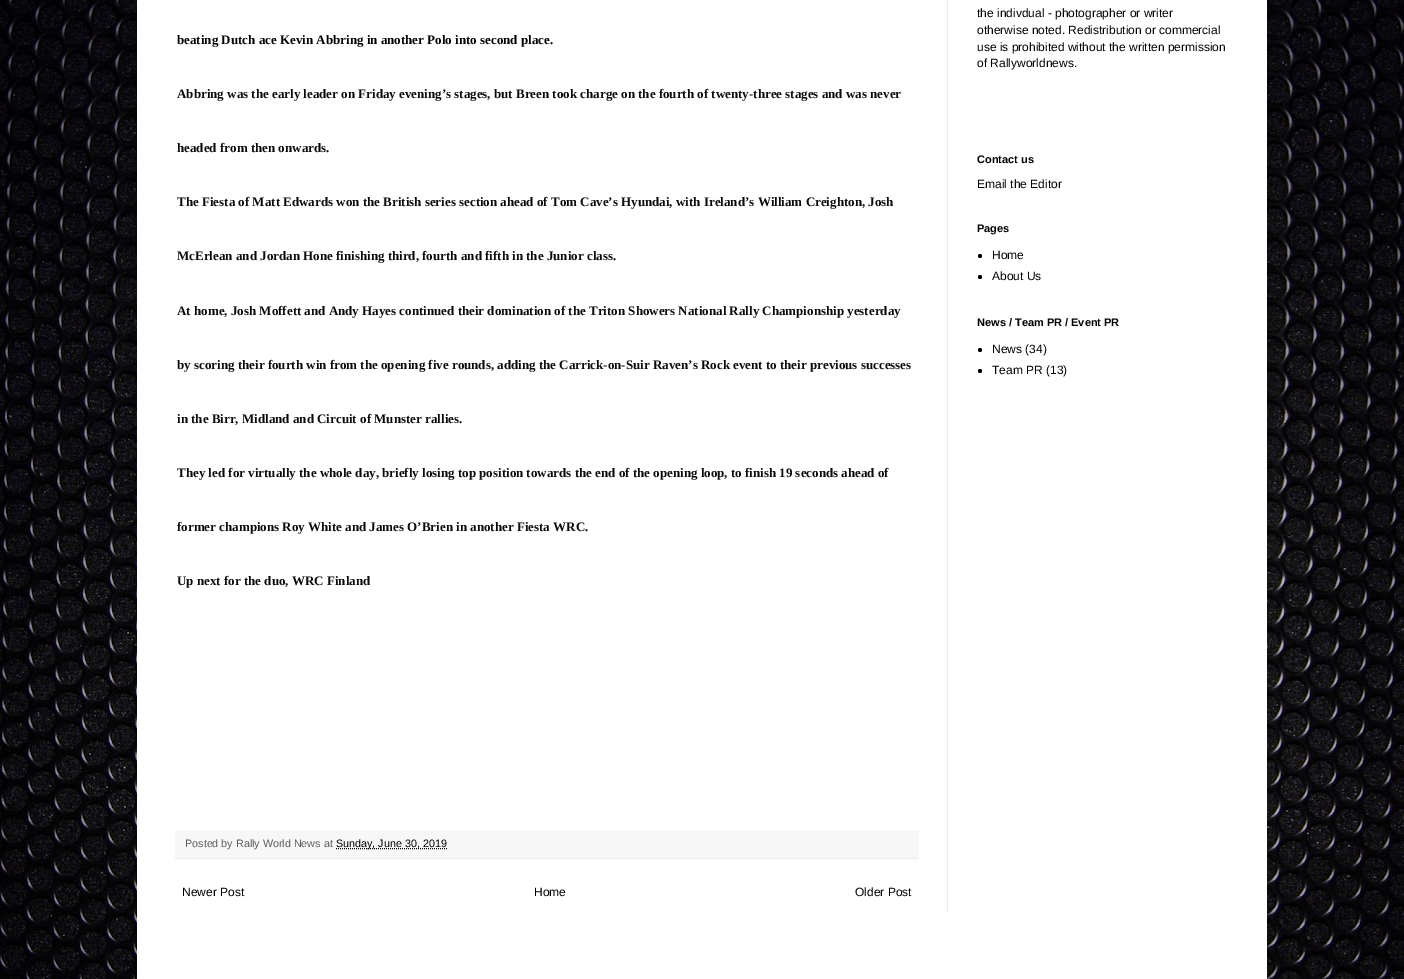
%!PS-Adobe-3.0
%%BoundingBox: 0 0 1404 979
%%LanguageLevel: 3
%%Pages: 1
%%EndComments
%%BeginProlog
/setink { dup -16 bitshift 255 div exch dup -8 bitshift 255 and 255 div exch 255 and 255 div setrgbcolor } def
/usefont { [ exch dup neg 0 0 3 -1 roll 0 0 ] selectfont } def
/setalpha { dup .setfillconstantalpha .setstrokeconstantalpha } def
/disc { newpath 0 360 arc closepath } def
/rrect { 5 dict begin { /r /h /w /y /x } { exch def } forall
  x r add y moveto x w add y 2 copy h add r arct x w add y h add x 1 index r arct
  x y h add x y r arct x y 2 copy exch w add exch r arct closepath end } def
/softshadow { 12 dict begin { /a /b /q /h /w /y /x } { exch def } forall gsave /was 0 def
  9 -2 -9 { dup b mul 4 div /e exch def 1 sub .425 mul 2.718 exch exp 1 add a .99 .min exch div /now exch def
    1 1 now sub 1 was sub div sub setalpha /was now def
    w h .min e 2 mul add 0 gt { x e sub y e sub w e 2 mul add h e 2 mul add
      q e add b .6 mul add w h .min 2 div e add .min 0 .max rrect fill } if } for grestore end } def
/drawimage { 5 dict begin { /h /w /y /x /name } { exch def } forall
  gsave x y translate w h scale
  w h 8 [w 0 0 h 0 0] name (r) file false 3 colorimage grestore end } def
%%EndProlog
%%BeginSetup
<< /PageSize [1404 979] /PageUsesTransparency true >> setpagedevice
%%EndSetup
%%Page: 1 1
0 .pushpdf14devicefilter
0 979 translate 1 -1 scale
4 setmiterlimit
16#FFFFFF setink
0 0 1404 979 rectfill
(img1.raw) 0 0 1404 979 drawimage
16#000000 setink
137 -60 1130 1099 0 20 0.15 softshadow
16#FFFFFF setink
137 0 1130 979 rectfill
16#ECECEC setink
947 0 1 912 rectfill
/LiberationSerif-Bold 13 usefont
16#000000 setink
177 44 moveto (beating Dutch ace Kevin Abbring in another Polo into second place.) show
16#0A0A0A setink
[
    [(Abbring was the early leader on Friday evening’s stages, but Breen took charge on the fourth of twenty-three stages and was never) 177 98]
    [(headed from then onwards.) 177 152]
    [(The Fiesta of Matt Edwards won the British series section ahead of Tom Cave’s Hyundai, with Ireland’s William Creighton, Josh) 177 206]
    [(McErlean and Jordan Hone finishing third, fourth and fifth in the Junior class.) 177 260]
    [(At home, Josh Moffett and Andy Hayes continued their domination of the Triton Showers National Rally Championship yesterday) 177 315]
    [(by scoring their fourth win from the opening five rounds, adding the Carrick-on-Suir Raven’s Rock event to their previous successes) 177 369]
    [(in the Birr, Midland and Circuit of Munster rallies.) 177 423]
    [(They led for virtually the whole day, briefly losing top position towards the end of the opening loop, to finish 19 seconds ahead of) 177 477]
    [(former champions Roy White and James O’Brien in another Fiesta WRC.) 177 531]
    [(Up next for the duo, WRC Finland) 177 585]
] { aload pop moveto show } forall
16#F7F7F7 setink
175 830 744 28 rectfill
16#ECECEC setink
175 858 744 1 rectfill
/LiberationSans-Regular 10.75 usefont
16#5C5C5C setink
185 847 moveto (Posted by Rally World News at) show
16#000000 setink
[1 1] 0 setdash
336 848.5 moveto 447.5 848.5 lineto stroke
336 847 moveto (Sunday, June 30, 2019) show
/LiberationSans-Regular 12 usefont
[
    [(Newer Post) 182 896]
    [(Home) 534 896]
    [(Older Post) 855 896]
    [(the indivdual - photographer or writer) 977 17]
    [(otherwise noted. Redistribution or commercial) 977 34]
    [(use is prohibited without the written permission) 977 51]
    [(of Rallyworldnews.) 977 67]
] { aload pop moveto show } forall
/LiberationSans-Bold 11 usefont
977 163 moveto (Contact us) show
/LiberationSans-Regular 12 usefont
977 188 moveto (Email the Editor) show
/LiberationSans-Bold 11 usefont
977 232 moveto (Pages) show
980 256 2 disc fill
/LiberationSans-Regular 12 usefont
992 259 moveto (Home) show
980 277 2 disc fill
992 280 moveto (About Us) show
/LiberationSans-Bold 11 usefont
977 326 moveto (News / Team PR / Event PR) show
980 350 2 disc fill
/LiberationSans-Regular 12 usefont
992 353 moveto (News \(34\)) show
980 371 2 disc fill
992 374 moveto (Team PR \(13\)) show
.poppdf14devicefilter showpage
%%EOF
